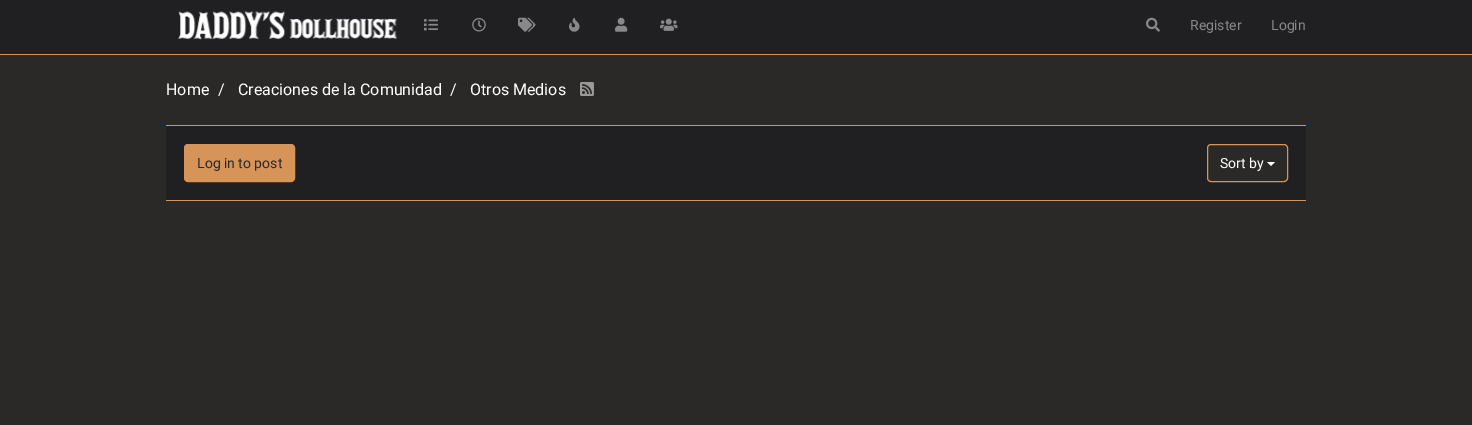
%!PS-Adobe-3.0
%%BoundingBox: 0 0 1472 425
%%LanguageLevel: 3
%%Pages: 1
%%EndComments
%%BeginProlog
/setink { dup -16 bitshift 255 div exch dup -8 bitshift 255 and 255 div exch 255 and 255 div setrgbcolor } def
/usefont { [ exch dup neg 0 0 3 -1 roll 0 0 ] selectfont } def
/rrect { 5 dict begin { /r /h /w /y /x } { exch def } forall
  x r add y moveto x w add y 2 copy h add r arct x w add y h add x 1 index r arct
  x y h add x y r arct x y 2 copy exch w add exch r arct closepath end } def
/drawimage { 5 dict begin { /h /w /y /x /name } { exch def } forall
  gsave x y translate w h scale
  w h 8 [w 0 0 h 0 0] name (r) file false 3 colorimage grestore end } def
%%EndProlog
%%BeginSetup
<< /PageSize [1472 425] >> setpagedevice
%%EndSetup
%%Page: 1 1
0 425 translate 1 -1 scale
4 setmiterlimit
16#2B2927 setink
0 0 1472 425 rectfill
16#202023 setink
0 0 1472 54 rectfill
16#D79459 setink
0 54 1472 1 rectfill
(img1.raw) 178 11 220 29 drawimage
(img2.raw) 424 19 14 12 drawimage
(img3.raw) 472 18 14 14 drawimage
(img4.raw) 518 17 18 15 drawimage
(img5.raw) 569 17 11 15 drawimage
(img6.raw) 615 17 13 15 drawimage
(img7.raw) 660 18 18 13 drawimage
(img8.raw) 1146 17 14 15 drawimage
/Roboto-Regular 14 usefont
16#888888 setink
1190 30 moveto (Register) show
1271 30 moveto (Login) show
/Roboto-Regular 16 usefont
16#FFFFFF setink
[
    [(Home) 166 95]
    [(/) 218 95]
    [(Creaciones de la Comunidad) 238 95]
    [(/) 450 95]
    [(Otros Medios) 470 95]
] { aload pop moveto show } forall
(img9.raw) 580 82 14 14 drawimage
[
    [166 126 1140 74 16#202023]
    [166 125 1140 1 16#D79459]
    [166 200 1140 1 16#D79459]
] { aload pop setink rectfill } forall
184.5 144.5 110 37 3.5 rrect gsave fill grestore
stroke
/Roboto-Regular 14 usefont
16#2B2927 setink
197 168 moveto (Log in to post) show
1207.5 144.5 80 37 3.5 rrect gsave fill grestore
16#D79459 setink
stroke
16#FFFFFF setink
1220 168 moveto (Sort by) show
1267 162 moveto 1275 162 lineto 1271 166 lineto closepath fill
showpage
%%EOF
